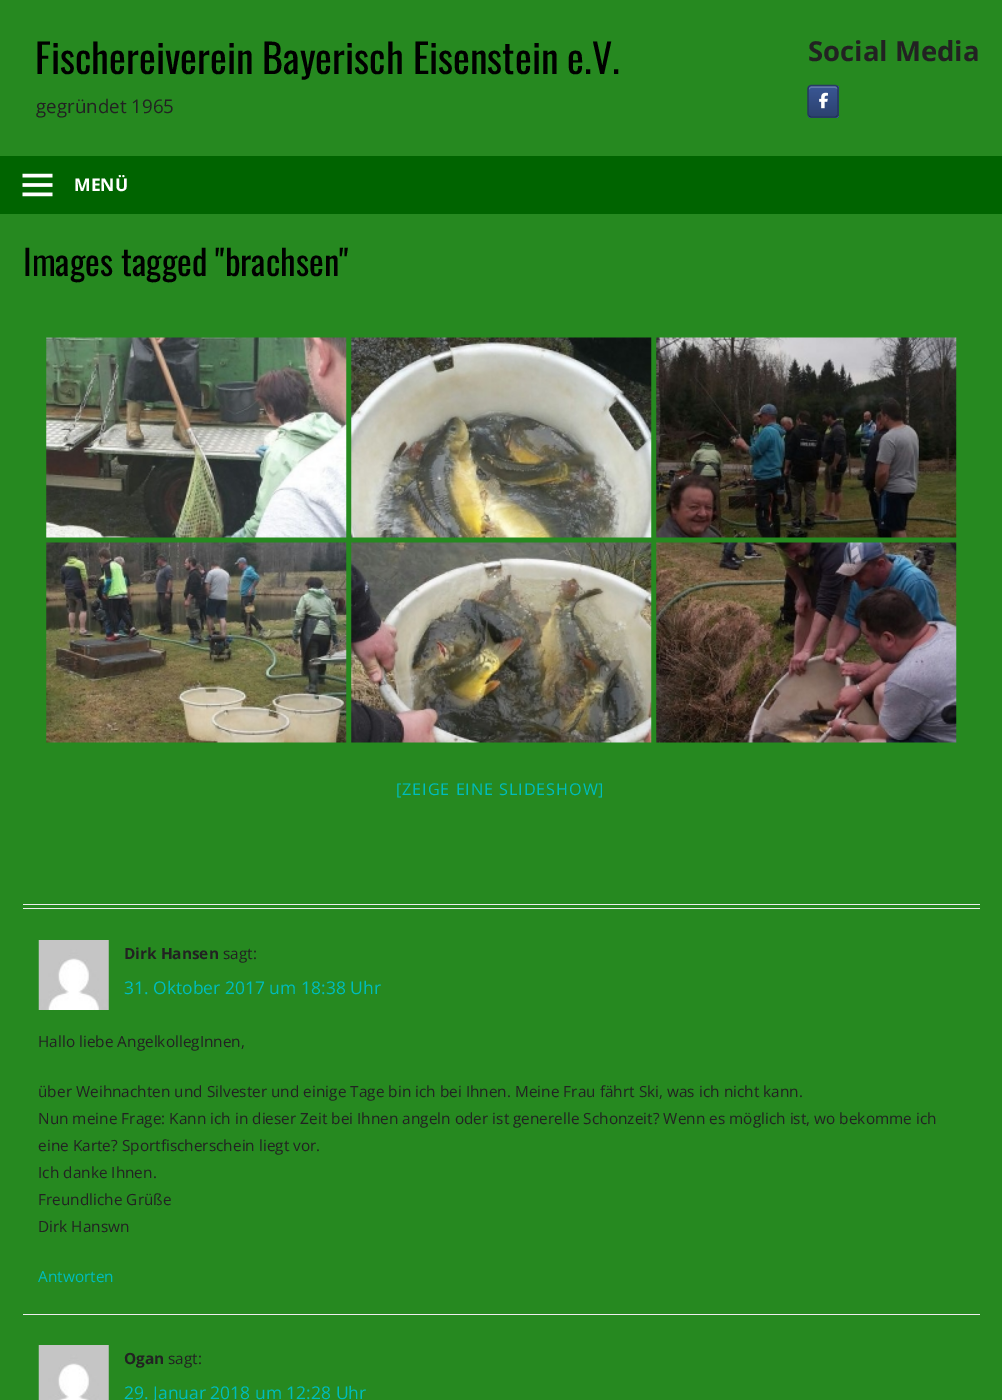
%!PS-Adobe-3.0
%%BoundingBox: 0 0 1002 1400
%%LanguageLevel: 3
%%Pages: 1
%%EndComments
%%BeginProlog
/setink { dup -16 bitshift 255 div exch dup -8 bitshift 255 and 255 div exch 255 and 255 div setrgbcolor } def
/usefont { [ exch dup neg 0 0 3 -1 roll 0 0 ] selectfont } def
/rrect { 5 dict begin { /r /h /w /y /x } { exch def } forall
  x r add y moveto x w add y 2 copy h add r arct x w add y h add x 1 index r arct
  x y h add x y r arct x y 2 copy exch w add exch r arct closepath end } def
/drawimage { 5 dict begin { /h /w /y /x /name } { exch def } forall
  gsave x y translate w h scale
  w h 8 [w 0 0 h 0 0] name (r) file false 3 colorimage grestore end } def
%%EndProlog
%%BeginSetup
<< /PageSize [1002 1400] >> setpagedevice
%%EndSetup
%%Page: 1 1
0 1400 translate 1 -1 scale
4 setmiterlimit
16#268920 setink
0 0 1002 1400 rectfill
/Oswald-Regular 40 usefont
16#000000 setink
35 74 moveto (Fischereiverein Bayerisch Eisenstein e.V.) show
/OpenSans-Regular 18.75 usefont
16#222222 setink
36 113 moveto (gegründet 1965) show
/OpenSans-Bold 27.5 usefont
808 61 moveto (Social Media) show
gsave
808 85 31 33 4 rrect clip newpath
gsave 808 86 moveto 839 86 lineto 839 116 lineto 808 116 lineto closepath clip newpath
<< /ShadingType 2 /ColorSpace /DeviceRGB /Coords [809 116 809 86] /Extend [true true] /Function << /FunctionType 2 /Domain [0 1] /C0 [0.173 0.259 0.439] /C1 [0.227 0.341 0.584] /N 1 >> >> shfill grestore
gsave 808 116 moveto 839 116 lineto 839 118 lineto 808 118 lineto closepath clip newpath
<< /ShadingType 2 /ColorSpace /DeviceRGB /Coords [809 146 809 116] /Extend [true true] /Function << /FunctionType 2 /Domain [0 1] /C0 [0.173 0.259 0.439] /C1 [0.227 0.341 0.584] /N 1 >> >> shfill grestore
grestore
16#6178A9 setink
811 88 moveto 835 88 lineto 836 88 838 89 838 90 curveto 838 85 836 86 831.5 86 curveto 815.5 86 lineto 811 86 809 85 809 90 curveto 809 89 810 88 811 88 curveto closepath fill
16#273B65 setink
1.2 setlinewidth
809 86.5 moveto 809.5 86 810.5 85.5 811.5 85.5 curveto 835 85.5 lineto 836 85.5 836.5 86 837 86.5 curveto stroke
16#25375E setink
837 86.5 moveto 838 87 838 88 838 89 curveto 838 113.5 lineto 838 114.5 838 115.5 837 116 curveto stroke
16#203053 setink
837 116 moveto 836.5 116.5 836 117 835 117 curveto 811.5 117 lineto 810.5 117 809.5 116.5 809 116 curveto stroke
16#25375E setink
809 116 moveto 808.5 115.5 808 114.5 808 113.5 curveto 808 89 lineto 808 88 808.5 87 809 86.5 curveto stroke
(img1.raw) 819 92 9 17 drawimage
16#006400 setink
0 156 1002 58 rectfill
(img2.raw) 22 173 31 24 drawimage
/OpenSans-Bold 17.5 usefont
16#FFFFFF setink
74 191 moveto (MENÜ) show
/Oswald-Regular 35 usefont
16#000000 setink
23 276 moveto (Images tagged "brachsen") show
(img3.raw) 46 337 301 201 drawimage
(img4.raw) 351 337 301 201 drawimage
(img5.raw) 656 337 301 201 drawimage
(img6.raw) 46 542 301 201 drawimage
(img7.raw) 351 542 301 201 drawimage
(img8.raw) 656 542 301 201 drawimage
/OpenSans-Regular 16.25 usefont
16#00BDBD setink
396 795 moveto 0.9 0 ([ZEIGE EINE SLIDESHOW]) ashow
[
    [23 908 957 1 16#EEEEEE]
    [23 904 957 1 16#EEEEEE]
    [23 1314 957 1 16#EEEEEE]
] { aload pop setink rectfill } forall
(img9.raw) 38 940 71 70 drawimage
/OpenSans-Bold 15.4 usefont
16#222222 setink
124 959 moveto (Dirk Hansen) show
/OpenSans-Regular 15.4 usefont
223 959 moveto (sagt:) show
/OpenSans-Regular 17.5 usefont
16#00BDBD setink
124 994 moveto (31. Oktober 2017 um 18:38 Uhr) show
/OpenSans-Regular 15.4 usefont
16#222222 setink
[
    [(Hallo liebe AngelkollegInnen,) 38 1047]
    [(über Weihnachten und Silvester und einige Tage bin ich bei Ihnen. Meine Frau fährt Ski, was ich nicht kann.) 38 1097]
    [(Nun meine Frage: Kann ich in dieser Zeit bei Ihnen angeln oder ist generelle Schonzeit? Wenn es möglich ist, wo bekomme ich) 38 1124]
    [(eine Karte? Sportfischerschein liegt vor.) 38 1151]
    [(Ich danke Ihnen.) 38 1178]
    [(Freundliche Grüße) 38 1205]
    [(Dirk Hanswn) 38 1232]
] { aload pop moveto show } forall
16#00BDBD setink
38 1282 moveto (Antworten) show
(img10.raw) 38 1345 71 55 drawimage
/OpenSans-Bold 15.4 usefont
16#222222 setink
124 1364 moveto (Ogan) show
/OpenSans-Regular 15.4 usefont
168 1364 moveto (sagt:) show
/OpenSans-Regular 17.5 usefont
16#00BDBD setink
124 1399 moveto (29. Januar 2018 um 12:28 Uhr) show
showpage
%%EOF
